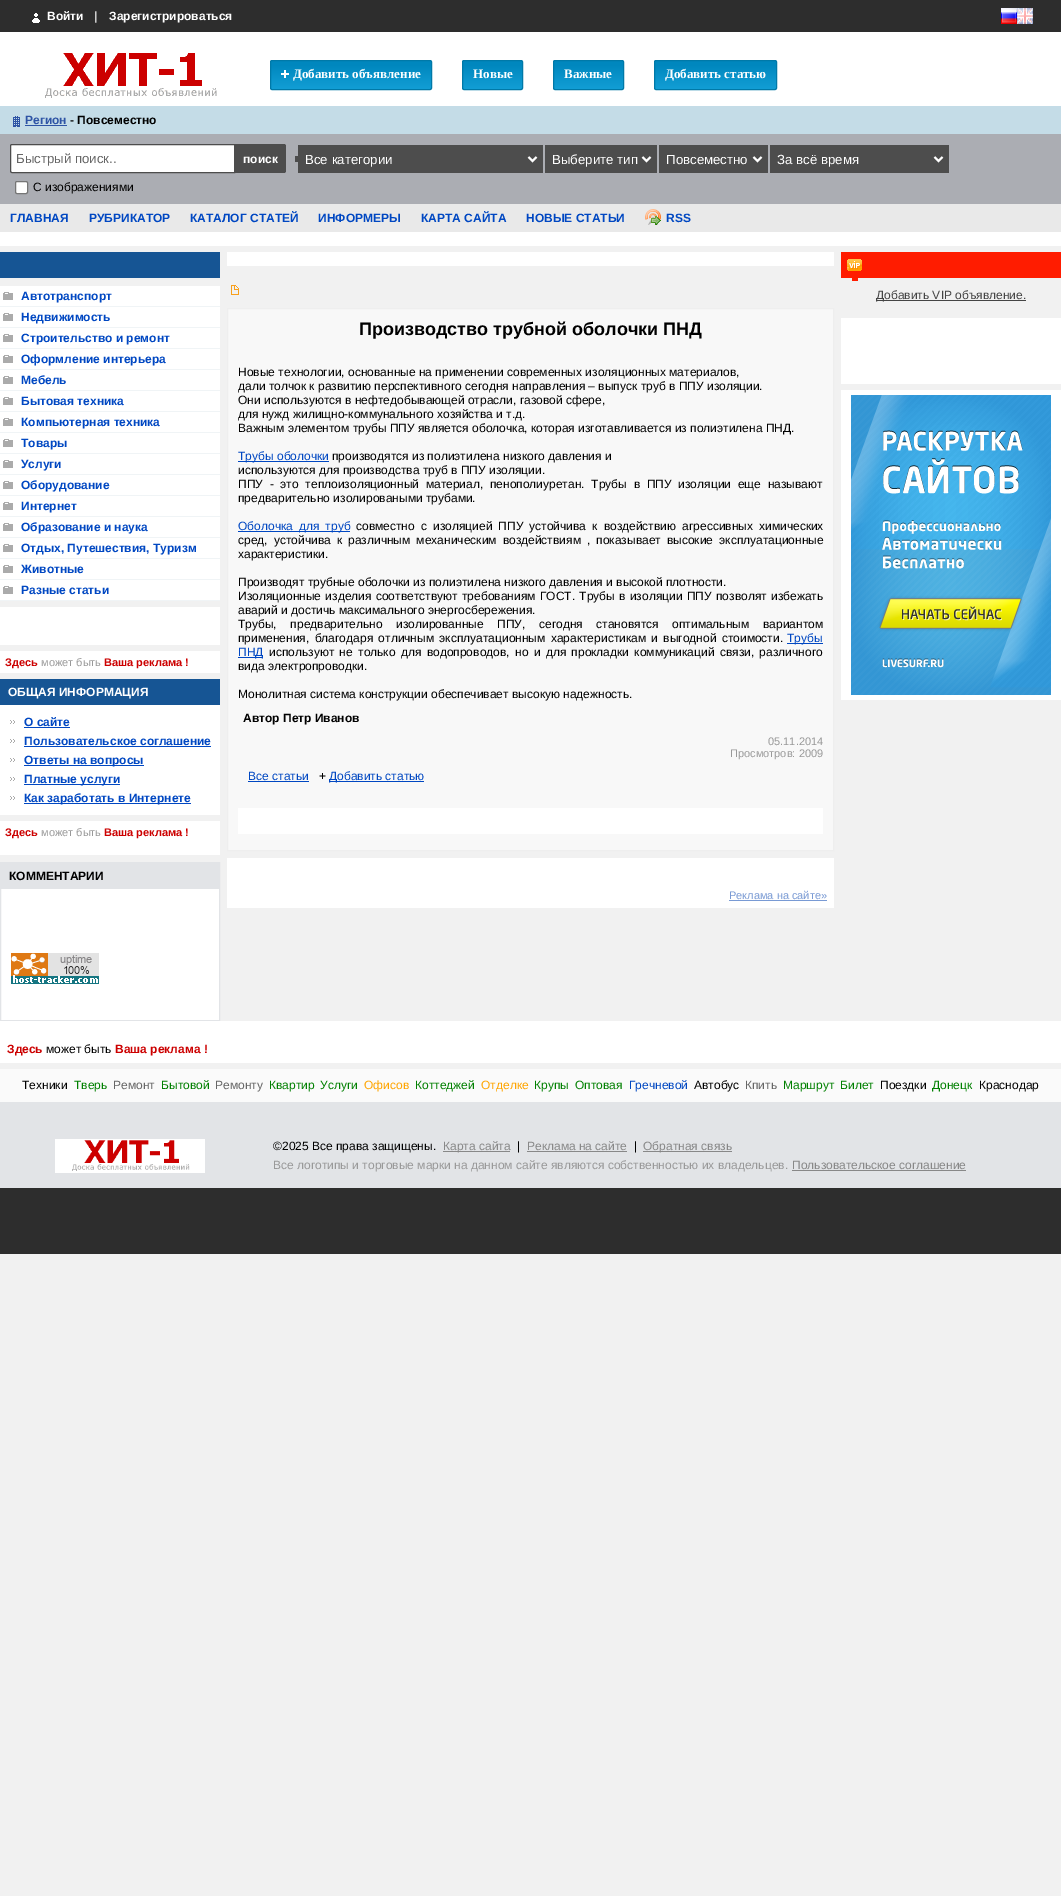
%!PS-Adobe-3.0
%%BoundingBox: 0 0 1061 1896
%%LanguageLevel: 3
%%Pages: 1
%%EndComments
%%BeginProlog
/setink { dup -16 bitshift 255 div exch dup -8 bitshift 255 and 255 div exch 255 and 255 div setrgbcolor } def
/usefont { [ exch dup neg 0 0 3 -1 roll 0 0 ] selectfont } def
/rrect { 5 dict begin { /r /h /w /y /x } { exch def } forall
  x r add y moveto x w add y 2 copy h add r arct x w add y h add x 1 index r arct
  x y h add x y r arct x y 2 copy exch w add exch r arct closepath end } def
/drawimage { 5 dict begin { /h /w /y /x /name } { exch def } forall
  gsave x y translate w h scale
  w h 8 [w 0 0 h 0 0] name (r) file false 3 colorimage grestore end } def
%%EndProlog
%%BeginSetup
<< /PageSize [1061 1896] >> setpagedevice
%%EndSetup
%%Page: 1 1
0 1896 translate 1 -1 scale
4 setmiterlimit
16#F1F1F1 setink
0 0 1061 1896 rectfill
16#2D2D2D setink
0 0 1061 32 rectfill
(img1.raw) 32 13 8 10 drawimage
/LiberationSans-Bold 12 usefont
16#FFFFFF setink
47 20 moveto (Войти) show
16#CCCCCC setink
94 20 moveto 2 0 (|) ashow
16#FFFFFF setink
109 20 moveto (Зарегистрироваться) show
(img2.raw) 1001 8 16 16 drawimage
(img3.raw) 1017 8 16 16 drawimage
0 32 1061 74 rectfill
(img4.raw) 45 53 172 45 drawimage
gsave
270 60 162 30 2 rrect clip newpath
gsave 270 61 moveto 432 61 lineto 432 89 lineto 270 89 lineto closepath clip newpath
<< /ShadingType 2 /ColorSpace /DeviceRGB /Coords [271 89 271 61] /Extend [true true] /Function << /FunctionType 3 /Domain [0 1] /Functions [<< /FunctionType 2 /Domain [0 1] /C0 [0.071 0.62 0.835] /C1 [0 0.529 0.745] /N 1 >> << /FunctionType 2 /Domain [0 1] /C0 [0 0.529 0.745] /C1 [0 0.529 0.745] /N 1 >>] /Bounds [0.86] /Encode [0 1 0 1] >> >> shfill grestore
grestore
16#0079A8 setink
270.5 60.5 161 29 1.5 rrect stroke
(img5.raw) 281 70 8 8 drawimage
/LiberationSerif-Bold 13 usefont
16#FFFFFF setink
293 78 moveto (Добавить объявление) show
gsave
462 60 61 30 2 rrect clip newpath
gsave 462 61 moveto 523 61 lineto 523 89 lineto 462 89 lineto closepath clip newpath
<< /ShadingType 2 /ColorSpace /DeviceRGB /Coords [463 89 463 61] /Extend [true true] /Function << /FunctionType 3 /Domain [0 1] /Functions [<< /FunctionType 2 /Domain [0 1] /C0 [0.071 0.62 0.835] /C1 [0 0.529 0.745] /N 1 >> << /FunctionType 2 /Domain [0 1] /C0 [0 0.529 0.745] /C1 [0 0.529 0.745] /N 1 >>] /Bounds [0.86] /Encode [0 1 0 1] >> >> shfill grestore
grestore
16#0079A8 setink
462.5 60.5 60 29 1.5 rrect stroke
16#FFFFFF setink
473 78 moveto (Новые) show
gsave
553 60 71 30 2 rrect clip newpath
gsave 553 61 moveto 624 61 lineto 624 89 lineto 553 89 lineto closepath clip newpath
<< /ShadingType 2 /ColorSpace /DeviceRGB /Coords [554 89 554 61] /Extend [true true] /Function << /FunctionType 3 /Domain [0 1] /Functions [<< /FunctionType 2 /Domain [0 1] /C0 [0.071 0.62 0.835] /C1 [0 0.529 0.745] /N 1 >> << /FunctionType 2 /Domain [0 1] /C0 [0 0.529 0.745] /C1 [0 0.529 0.745] /N 1 >>] /Bounds [0.86] /Encode [0 1 0 1] >> >> shfill grestore
grestore
16#0079A8 setink
553.5 60.5 70 29 1.5 rrect stroke
16#FFFFFF setink
564 78 moveto (Важные) show
gsave
654 60 123 30 2 rrect clip newpath
gsave 654 61 moveto 777 61 lineto 777 89 lineto 654 89 lineto closepath clip newpath
<< /ShadingType 2 /ColorSpace /DeviceRGB /Coords [655 89 655 61] /Extend [true true] /Function << /FunctionType 3 /Domain [0 1] /Functions [<< /FunctionType 2 /Domain [0 1] /C0 [0.071 0.62 0.835] /C1 [0 0.529 0.745] /N 1 >> << /FunctionType 2 /Domain [0 1] /C0 [0 0.529 0.745] /C1 [0 0.529 0.745] /N 1 >>] /Bounds [0.86] /Encode [0 1 0 1] >> >> shfill grestore
grestore
16#0079A8 setink
654.5 60.5 122 29 1.5 rrect stroke
16#FFFFFF setink
665 78 moveto (Добавить статью) show
16#C4DCE7 setink
0 106 1061 28 rectfill
(img6.raw) 13 116 7 11 drawimage
/LiberationSans-Bold 12 usefont
16#2E54A5 setink
25 124 moveto (Регион) show
25 125 42 1 rectfill
16#000000 setink
70 124 moveto (- Повсеместно) show
16#ABADB3 setink
0 134 1061 70 rectfill
16#FFFFFF setink
12 144.5 moveto 234.5 144.5 lineto 234.5 172.5 lineto 12 172.5 lineto 11 172.5 10.5 172 10.5 171 curveto 10.5 146 lineto 10.5 145 11 144.5 12 144.5 curveto closepath gsave fill grestore
16#4D4D4D setink
stroke
/LiberationSans-Regular 13.25 usefont
16#666666 setink
16 163 moveto (Быстрый поиск..) show
16#4D4D4D setink
235 144 moveto 284 144 lineto 285 144 286 145 286 146 curveto 286 171 lineto 286 172 285 173 284 173 curveto 235 173 lineto closepath fill
/LiberationSans-Bold 12 usefont
16#FFFFFF setink
243 163 moveto (поиск) show
16#4D4D4D setink
295 156 3 6 rectfill
298 145 245 28 rectfill
16#FFFFFF setink
2 setlinewidth
528.5 157 moveto 532.5 161 lineto 536.5 157 lineto stroke
/LiberationSans-Regular 13.25 usefont
305 164 moveto (Все категории) show
16#4D4D4D setink
545 145 112 28 rectfill
16#FFFFFF setink
642.5 157 moveto 646.5 161 lineto 650.5 157 lineto stroke
552 164 moveto (Выберите тип) show
16#4D4D4D setink
659 145 109 28 rectfill
16#FFFFFF setink
753.5 157 moveto 757.5 161 lineto 761.5 157 lineto stroke
666 164 moveto (Повсеместно) show
16#4D4D4D setink
770 145 179 28 rectfill
16#FFFFFF setink
934.5 157 moveto 938.5 161 lineto 942.5 157 lineto stroke
777 164 moveto (За всё время) show
15.5 181.5 12 12 1.5 rrect gsave fill grestore
16#767676 setink
1 setlinewidth
stroke
/LiberationSans-Regular 12 usefont
16#000000 setink
33 191 moveto (С изображениями) show
16#E9E9E9 setink
0 204 1061 28 rectfill
/LiberationSans-Bold 12 usefont
16#0047C2 setink
[
    [(ГЛАВНАЯ) 10 222]
    [(РУБРИКАТОР) 89 222]
    [(КАТАЛОГ СТАТЕЙ) 190 222]
    [(ИНФОРМЕРЫ) 318 222]
    [(КАРТА САЙТА) 421 222]
    [(НОВЫЕ СТАТЬИ) 526 222]
] { aload pop moveto show } forall
(img7.raw) 645 209 16 16 drawimage
666 222 moveto (RSS) show
[
    [0 232 1061 14 16#FFFFFF]
    [0 252 220 26 16#165594]
    [0 286 220 314 16#FFFFFF]
    [0 306 220 1 16#F0F4F6]
] { aload pop setink rectfill } forall
(img8.raw) 3 292 10 8 drawimage
16#0047C2 setink
21 300 moveto (Автотранспорт) show
16#F0F4F6 setink
0 327 220 1 rectfill
(img8.raw) 3 313 10 8 drawimage
16#0047C2 setink
21 321 moveto (Недвижимость) show
16#F0F4F6 setink
0 348 220 1 rectfill
(img8.raw) 3 334 10 8 drawimage
16#0047C2 setink
21 342 moveto (Строительство и ремонт) show
16#F0F4F6 setink
0 369 220 1 rectfill
(img8.raw) 3 355 10 8 drawimage
16#0047C2 setink
21 363 moveto (Оформление интерьера) show
16#F0F4F6 setink
0 390 220 1 rectfill
(img8.raw) 3 376 10 8 drawimage
16#0047C2 setink
21 384 moveto (Мебель) show
16#F0F4F6 setink
0 411 220 1 rectfill
(img8.raw) 3 397 10 8 drawimage
16#0047C2 setink
21 405 moveto (Бытовая техника) show
16#F0F4F6 setink
0 432 220 1 rectfill
(img8.raw) 3 418 10 8 drawimage
16#0047C2 setink
21 426 moveto (Компьютерная техника) show
16#F0F4F6 setink
0 453 220 1 rectfill
(img8.raw) 3 439 10 8 drawimage
16#0047C2 setink
21 447 moveto (Товары) show
16#F0F4F6 setink
0 474 220 1 rectfill
(img8.raw) 3 460 10 8 drawimage
16#0047C2 setink
21 468 moveto (Услуги) show
16#F0F4F6 setink
0 495 220 1 rectfill
(img8.raw) 3 481 10 8 drawimage
16#0047C2 setink
21 489 moveto (Оборудование) show
16#F0F4F6 setink
0 516 220 1 rectfill
(img8.raw) 3 502 10 8 drawimage
16#0047C2 setink
21 510 moveto (Интернет) show
16#F0F4F6 setink
0 537 220 1 rectfill
(img8.raw) 3 523 10 8 drawimage
16#0047C2 setink
21 531 moveto (Образование и наука) show
16#F0F4F6 setink
0 558 220 1 rectfill
(img8.raw) 3 544 10 8 drawimage
16#0047C2 setink
21 552 moveto (Отдых, Путешествия, Туризм) show
16#F0F4F6 setink
0 579 220 1 rectfill
(img8.raw) 3 565 10 8 drawimage
16#0047C2 setink
21 573 moveto (Животные) show
16#F0F4F6 setink
0 600 220 1 rectfill
(img8.raw) 3 586 10 8 drawimage
16#0047C2 setink
21 594 moveto (Разные статьи) show
16#FFFFFF setink
0 607 220 38 rectfill
0 651 220 22 rectfill
/LiberationSans-Bold 11 usefont
16#CC0000 setink
5 666 moveto (Здесь) show
/LiberationSans-Regular 11 usefont
16#999999 setink
41 666 moveto (может быть) show
/LiberationSans-Bold 11 usefont
16#CC0000 setink
104 666 moveto (Ваша реклама !) show
16#165594 setink
0 679 220 26 rectfill
/LiberationSans-Bold 12 usefont
16#FFFFFF setink
8 696 moveto (ОБЩАЯ ИНФОРМАЦИЯ) show
0 705 220 110 rectfill
(img9.raw) 10 720 5 4 drawimage
16#0047C2 setink
24 726 moveto (О сайте) show
24 727 46 1 rectfill
(img9.raw) 10 739 5 4 drawimage
24 745 moveto (Пользовательское соглашение) show
24 746 187 1 rectfill
(img9.raw) 10 758 5 4 drawimage
24 765 120 1 rectfill
24 764 moveto (Ответы на вопросы) show
(img9.raw) 10 777 5 4 drawimage
24 784 96 1 rectfill
24 783 moveto (Платные услуги) show
(img9.raw) 10 796 5 4 drawimage
24 803 167 1 rectfill
24 802 moveto (Как заработать в Интернете) show
16#FFFFFF setink
0 821 220 34 rectfill
/LiberationSans-Bold 11 usefont
16#CC0000 setink
5 836 moveto (Здесь) show
/LiberationSans-Regular 11 usefont
16#999999 setink
41 836 moveto (может быть) show
/LiberationSans-Bold 11 usefont
16#CC0000 setink
104 836 moveto (Ваша реклама !) show
16#FFFFFF setink
1 889 218 131 rectfill
16#E2E4E7 setink
0.5 862.5 219 158 rectstroke
1 863 218 26 rectfill
/LiberationSans-Bold 12 usefont
16#000000 setink
9 880 moveto (КОММЕНТАРИИ) show
(img10.raw) 11 953 88 31 drawimage
16#FFFFFF setink
227 252 607 14 rectfill
(img11.raw) 231 285 8 10 drawimage
16#F8F8F8 setink
227.5 308.5 moveto 833.5 308.5 lineto 833.5 850.5 lineto 227.5 850.5 lineto closepath gsave fill grestore
16#EEEEEE setink
stroke
/LiberationSans-Bold 18 usefont
16#000000 setink
359 335 moveto (Производство трубной оболочки ПНД) show
/LiberationSans-Regular 12 usefont
[
    [(Новые технологии, основанные на применении современных изоляционных материалов,) 238 376]
    [(дали толчок к развитию перспективного сегодня направления – выпуск труб в ППУ изоляции.) 238 390]
    [(Они используются в нефтедобывающей отрасли, газовой сфере,) 238 404]
    [(для нужд жилищно-коммунального хозяйства и т.д.) 238 418]
    [(Важным элементом трубы ППУ является оболочка, которая изготавливается из полиэтилена ПНД.) 238 432]
] { aload pop moveto show } forall
16#0047C2 setink
238 461 91 1 rectfill
238 460 moveto (Трубы оболочки) show
16#000000 setink
332 460 moveto (производятся из полиэтилена низкого давления и) show
238 474 moveto (используются для производства труб в ППУ изоляции.) show
238 488 moveto 3.4 0 32 (ППУ - это теплоизоляционный материал, пенополиуретан. Трубы в ППУ изоляции еще называют) widthshow
238 502 moveto (предварительно изолироваными трубами.) show
16#0047C2 setink
238 531 112 1 rectfill
238 530 moveto 2.75 0 32 (Оболочка для труб) widthshow
16#000000 setink
356 530 moveto 2.75 0 32 (совместно с изоляцией ППУ устойчива к воздействию агрессивных химических) widthshow
238 544 moveto 2.75 0 32 (сред, устойчива к различным механическим воздействиям , показывает высокие эксплуатационные) widthshow
238 558 moveto (характеристики.) show
238 586 moveto (Производят трубные оболочки из полиэтилена низкого давления и высокой плотности.) show
238 600 moveto 1 0 32 (Изоляционные изделия соответствуют требованиям ГОСТ. Трубы в изоляции ППУ позволят избежать) widthshow
238 614 moveto (аварий и достичь максимального энергосбережения.) show
238 628 moveto 10.25 0 32 (Трубы, предварительно изолированные ППУ, сегодня становятся оптимальным вариантом) widthshow
238 642 moveto 2 0 32 (применения, благодаря отличным эксплуатационным характеристикам и выгодной стоимости.) widthshow
16#0047C2 setink
787 643 36 1 rectfill
787 642 moveto (Трубы) show
238 657 25 1 rectfill
238 656 moveto (ПНД) show
16#000000 setink
269 656 moveto 2 0 32 (используют не только для водопроводов, но и для прокладки коммуникаций связи, различного) widthshow
238 670 moveto (вида электропроводки.) show
238 698 moveto (Монолитная система конструкции обеспечивает высокую надежность.) show
/LiberationSans-Bold 12 usefont
243 722 moveto (Автор Петр Иванов) show
/LiberationSans-Regular 11 usefont
16#999999 setink
768 745 moveto (05.11.2014) show
730 757 moveto (Просмотров: 2009) show
/LiberationSans-Regular 12 usefont
16#0047C2 setink
248 780 moveto (Все статьи) show
248 781 61 1 rectfill
16#000000 setink
319 780 moveto (+) show
16#0047C2 setink
329 781 95 1 rectfill
329 780 moveto (Добавить статью) show
16#FFFFFF setink
238 808 585 26 rectfill
227 858 607 50 rectfill
/LiberationSans-Regular 11 usefont
16#799AD4 setink
729 899 moveto (Реклама на сайте») show
[
    [729 900 98 1 16#799AD4]
    [852 278 6 3 16#FF1C00]
    [841 252 220 26 16#FF1C00]
] { aload pop setink rectfill } forall
(img12.raw) 847 259 15 12 drawimage
16#444444 setink
876 300 150 1 rectfill
/LiberationSans-Regular 12 usefont
876 299 moveto (Добавить VIP объявление.) show
16#FFFFFF setink
841 318 220 66 rectfill
841 390 220 310 rectfill
(img13.raw) 851 395 200 300 drawimage
0 1021 1061 42 rectfill
/LiberationSans-Bold 12 usefont
16#CC0000 setink
7 1053 moveto (Здесь) show
/LiberationSans-Regular 12 usefont
16#000000 setink
46 1053 moveto (может быть) show
/LiberationSans-Bold 12 usefont
16#CC0000 setink
115 1053 moveto (Ваша реклама !) show
16#FAFAFA setink
0 1069 1061 33 rectfill
/LiberationSans-Regular 12 usefont
16#000000 setink
22 1089 moveto (Техники) show
16#008000 setink
74 1089 moveto (Тверь) show
16#666666 setink
113 1089 moveto (Ремонт) show
16#008000 setink
161 1089 moveto (Бытовой) show
16#666666 setink
215 1089 moveto (Ремонту) show
16#008000 setink
269 1089 moveto (Квартир) show
320 1089 moveto (Услуги) show
16#FFA500 setink
364 1089 moveto (Офисов) show
16#008000 setink
415 1089 moveto (Коттеджей) show
16#FFA500 setink
481 1089 moveto (Отделке) show
16#008000 setink
534 1089 moveto (Крупы) show
575 1089 moveto (Оптовая) show
16#0047C2 setink
629 1089 moveto (Гречневой) show
16#000000 setink
694 1089 moveto (Автобус) show
16#666666 setink
745 1089 moveto (Кпить) show
16#008000 setink
783 1089 moveto (Маршрут) show
840 1089 moveto (Билет) show
16#000000 setink
880 1089 moveto (Поездки) show
16#008000 setink
932 1089 moveto (Донецк) show
16#000000 setink
979 1089 moveto (Краснодар) show
16#E2E4E7 setink
0 1102 1061 86 rectfill
(img14.raw) 55 1139 150 34 drawimage
16#000000 setink
273 1150 moveto (©2025 Все права защищены.) show
16#888888 setink
443 1151 67 1 rectfill
443 1150 moveto (Карта сайта) show
16#000000 setink
517 1150 moveto (|) show
16#888888 setink
527 1150 moveto (Реклама на сайте) show
527 1151 100 1 rectfill
16#000000 setink
634 1150 moveto (|) show
16#888888 setink
643 1151 89 1 rectfill
643 1150 moveto (Обратная связь) show
16#999999 setink
273 1169 moveto (Все логотипы и торговые марки на данном сайте являются собственностью их владельцев.) show
16#888888 setink
792 1169 moveto (Пользовательское соглашение) show
792 1170 174 1 rectfill
16#2D2D2D setink
0 1188 1061 66 rectfill
showpage
%%EOF
